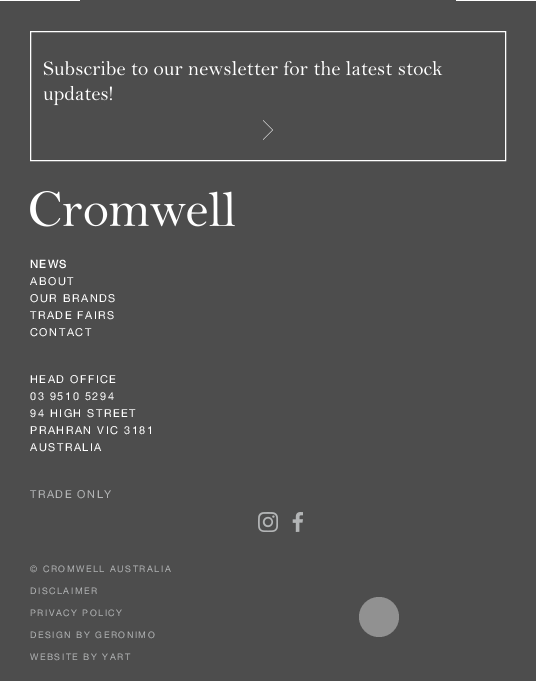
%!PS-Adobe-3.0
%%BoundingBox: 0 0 536 681
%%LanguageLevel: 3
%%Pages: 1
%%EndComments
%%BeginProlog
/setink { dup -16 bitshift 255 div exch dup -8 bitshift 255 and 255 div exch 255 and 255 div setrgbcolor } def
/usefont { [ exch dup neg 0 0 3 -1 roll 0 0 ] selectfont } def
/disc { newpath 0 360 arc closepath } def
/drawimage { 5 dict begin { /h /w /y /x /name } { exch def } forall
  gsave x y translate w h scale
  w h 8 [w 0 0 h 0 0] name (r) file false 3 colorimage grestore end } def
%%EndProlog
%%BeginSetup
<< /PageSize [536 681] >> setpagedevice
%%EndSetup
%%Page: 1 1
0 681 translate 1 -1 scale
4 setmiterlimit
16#FFFFFF setink
0 0 536 681 rectfill
16#4D4D4D setink
80 0 376 1 rectfill
0 1 536 680 rectfill
16#FFFFFF setink
30.5 31.5 475 129 rectstroke
(img1.raw) 43 61 400 15 drawimage
(img2.raw) 43 86 69 20 drawimage
263 140 moveto 263 139.5 lineto 272.5 130 lineto 263 120.5 lineto 263 120 lineto 273 130 lineto closepath fill
(img3.raw) 30 191 205 36 drawimage
/HelveticaNeue-Bold 11 usefont
30 268 moveto 1.5 0 (NEWS) ashow
/HelveticaNeue-Regular 11 usefont
30 285 moveto 1.5 0 (ABOUT) ashow
30 302 moveto 1.5 0 (OUR BRANDS) ashow
30 319 moveto 1.5 0 (TRADE FAIRS) ashow
30 336 moveto 1.5 0 (CONTACT) ashow
30 383 moveto 1.5 0 (HEAD OFFICE) ashow
30 400 moveto 1.5 0 (03 9510 5294) ashow
30 417 moveto 1.5 0 (94 HIGH STREET) ashow
30 434 moveto 1.5 0 (PRAHRAN VIC 3181) ashow
30 451 moveto 1.5 0 (AUSTRALIA) ashow
16#B3B5B6 setink
30 498 moveto 1.5 0 (TRADE ONLY) ashow
(img4.raw) 258 512 20 20 drawimage
(img5.raw) 292 512 11 20 drawimage
/HelveticaNeue-Regular 9 usefont
30 572 moveto 1.5 0 (© CROMWELL AUSTRALIA) ashow
30 594 moveto 1.5 0 (DISCLAIMER) ashow
30 616 moveto 1.5 0 (PRIVACY POLICY) ashow
30 638 moveto 1.5 0 (DESIGN BY GERONIMO) ashow
30 660 moveto 1.5 0 (WEBSITE BY YART) ashow
16#919191 setink
379 617 20 disc fill
showpage
%%EOF
